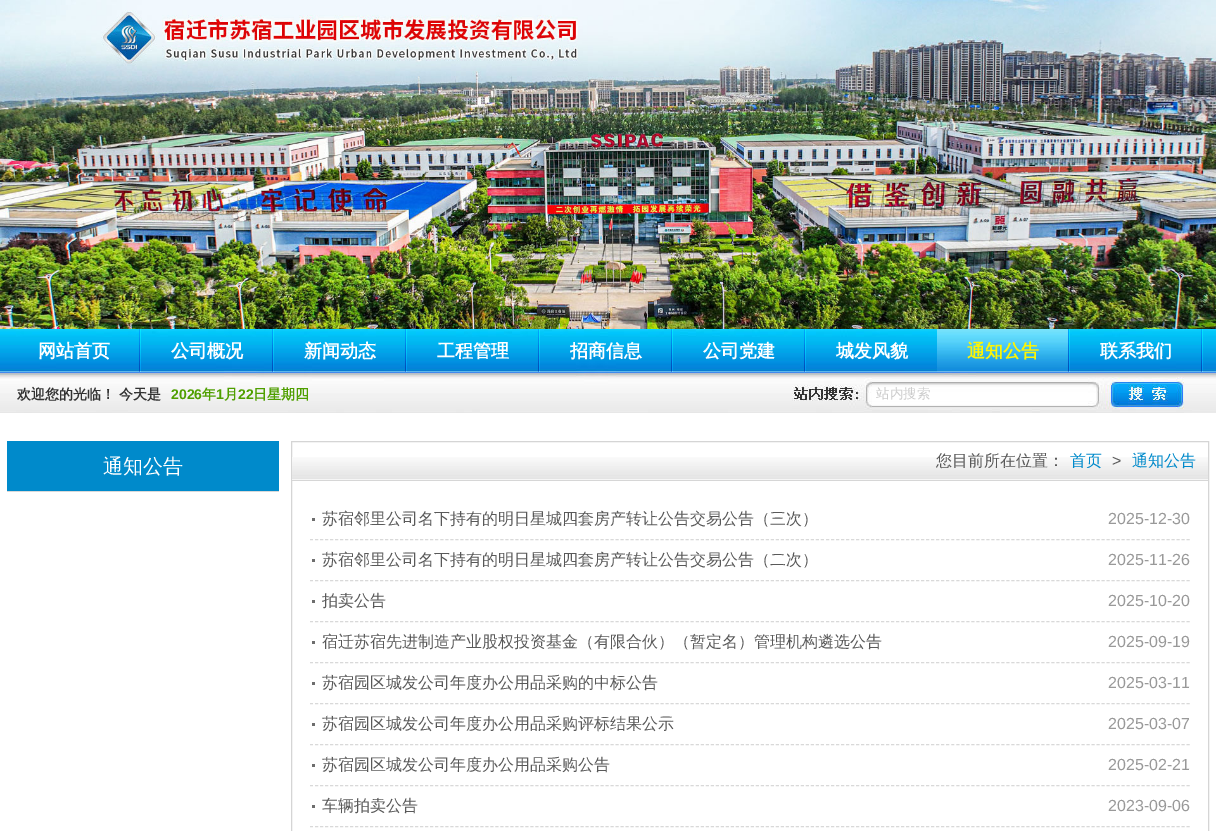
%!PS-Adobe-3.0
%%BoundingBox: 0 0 1216 831
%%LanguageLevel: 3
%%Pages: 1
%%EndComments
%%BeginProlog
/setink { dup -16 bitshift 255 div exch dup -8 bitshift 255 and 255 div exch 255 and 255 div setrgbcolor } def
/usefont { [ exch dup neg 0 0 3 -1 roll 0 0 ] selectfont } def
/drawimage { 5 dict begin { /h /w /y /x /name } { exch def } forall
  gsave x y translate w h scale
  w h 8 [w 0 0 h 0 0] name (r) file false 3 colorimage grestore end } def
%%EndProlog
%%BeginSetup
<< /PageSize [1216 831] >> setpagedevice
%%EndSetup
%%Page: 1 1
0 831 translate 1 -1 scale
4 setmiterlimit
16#FFFFFF setink
0 0 1216 831 rectfill
(img1.raw) 0 0 1216 329 drawimage
(img2.raw) 0 329 1216 84 drawimage
(img3.raw) 139 329 2 43 drawimage
/WenQuanYiZenHei-Bold 18 usefont
38 357 moveto (网站首页) show
(img3.raw) 272 329 2 43 drawimage
171 357 moveto (公司概况) show
(img3.raw) 405 329 2 43 drawimage
304 357 moveto (新闻动态) show
(img3.raw) 538 329 2 43 drawimage
437 357 moveto (工程管理) show
(img3.raw) 671 329 2 43 drawimage
570 357 moveto (招商信息) show
(img3.raw) 804 329 2 43 drawimage
703 357 moveto (公司党建) show
836 357 moveto (城发风貌) show
(img3.raw) 1068 329 2 43 drawimage
(img4.raw) 937 329 131 43 drawimage
16#FFF503 setink
967 357 moveto (通知公告) show
(img3.raw) 1201 329 2 43 drawimage
16#FFFFFF setink
1100 357 moveto (联系我们) show
/WenQuanYiZenHei-Bold 14 usefont
16#323232 setink
17 399 moveto (欢迎您的光临！ 今天是) show
/LiberationSans-Bold 14 usefont
16#4F9F00 setink
171 399 moveto (2026) show
/WenQuanYiZenHei-Bold 14 usefont
202 399 moveto (年) show
/LiberationSans-Bold 14 usefont
216 399 moveto (1) show
/WenQuanYiZenHei-Bold 14 usefont
224 399 moveto (月) show
/LiberationSans-Bold 14 usefont
238 399 moveto (22) show
/WenQuanYiZenHei-Bold 14 usefont
253 399 moveto (日星期四) show
/WenQuanYiZenHei-Medium 13.5 usefont
16#CCCCCC setink
876 398 moveto (站内搜索) show
16#008ACB setink
7 441 272 50 rectfill
/WenQuanYiZenHei-Medium 20 usefont
16#FFFFFF setink
103 473 moveto (通知公告) show
16#D9D9D9 setink
7 491 272 1 rectfill
16#D5D5D5 setink
291.5 441.5 917 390 rectstroke
(img5.raw) 292 457 916 24 drawimage
/WenQuanYiZenHei-Medium 16 usefont
16#595959 setink
936 466 moveto (您目前所在位置：) show
16#008ACB setink
1070 466 moveto (首页) show
/LiberationSans-Regular 16 usefont
16#595959 setink
1112 466 moveto (>) show
/WenQuanYiZenHei-Medium 16 usefont
16#008ACB setink
1132 466 moveto (通知公告) show
16#6D6D6D setink
312 518 3 3 rectfill
16#D9D9D9 setink
[3 2.01] 0 setdash
310 539.5 moveto 1190 539.5 lineto stroke
16#595959 setink
322 524 moveto (苏宿邻里公司名下持有的明日星城四套房产转让公告交易公告（三次）) show
/LiberationSans-Regular 16 usefont
16#999999 setink
1108 524 moveto (2025-12-30) show
16#6D6D6D setink
312 559 3 3 rectfill
16#D9D9D9 setink
310 580.5 moveto 1190 580.5 lineto stroke
/WenQuanYiZenHei-Medium 16 usefont
16#595959 setink
322 565 moveto (苏宿邻里公司名下持有的明日星城四套房产转让公告交易公告（二次）) show
/LiberationSans-Regular 16 usefont
16#999999 setink
1108 565 moveto (2025-11-26) show
16#6D6D6D setink
312 600 3 3 rectfill
16#D9D9D9 setink
310 621.5 moveto 1190 621.5 lineto stroke
/WenQuanYiZenHei-Medium 16 usefont
16#595959 setink
322 606 moveto (拍卖公告) show
/LiberationSans-Regular 16 usefont
16#999999 setink
1108 606 moveto (2025-10-20) show
16#6D6D6D setink
312 641 3 3 rectfill
16#D9D9D9 setink
310 662.5 moveto 1190 662.5 lineto stroke
/WenQuanYiZenHei-Medium 16 usefont
16#595959 setink
322 647 moveto (宿迁苏宿先进制造产业股权投资基金（有限合伙）（暂定名）管理机构遴选公告) show
/LiberationSans-Regular 16 usefont
16#999999 setink
1108 647 moveto (2025-09-19) show
16#6D6D6D setink
312 682 3 3 rectfill
16#D9D9D9 setink
310 703.5 moveto 1190 703.5 lineto stroke
/WenQuanYiZenHei-Medium 16 usefont
16#595959 setink
322 688 moveto (苏宿园区城发公司年度办公用品采购的中标公告) show
/LiberationSans-Regular 16 usefont
16#999999 setink
1108 688 moveto (2025-03-11) show
16#6D6D6D setink
312 723 3 3 rectfill
16#D9D9D9 setink
310 744.5 moveto 1190 744.5 lineto stroke
/WenQuanYiZenHei-Medium 16 usefont
16#595959 setink
322 729 moveto (苏宿园区城发公司年度办公用品采购评标结果公示) show
/LiberationSans-Regular 16 usefont
16#999999 setink
1108 729 moveto (2025-03-07) show
16#6D6D6D setink
312 764 3 3 rectfill
16#D9D9D9 setink
310 785.5 moveto 1190 785.5 lineto stroke
/WenQuanYiZenHei-Medium 16 usefont
16#595959 setink
322 770 moveto (苏宿园区城发公司年度办公用品采购公告) show
/LiberationSans-Regular 16 usefont
16#999999 setink
1108 770 moveto (2025-02-21) show
16#6D6D6D setink
312 805 3 3 rectfill
16#D9D9D9 setink
310 826.5 moveto 1190 826.5 lineto stroke
/WenQuanYiZenHei-Medium 16 usefont
16#595959 setink
322 811 moveto (车辆拍卖公告) show
/LiberationSans-Regular 16 usefont
16#999999 setink
1108 811 moveto (2023-09-06) show
showpage
%%EOF
